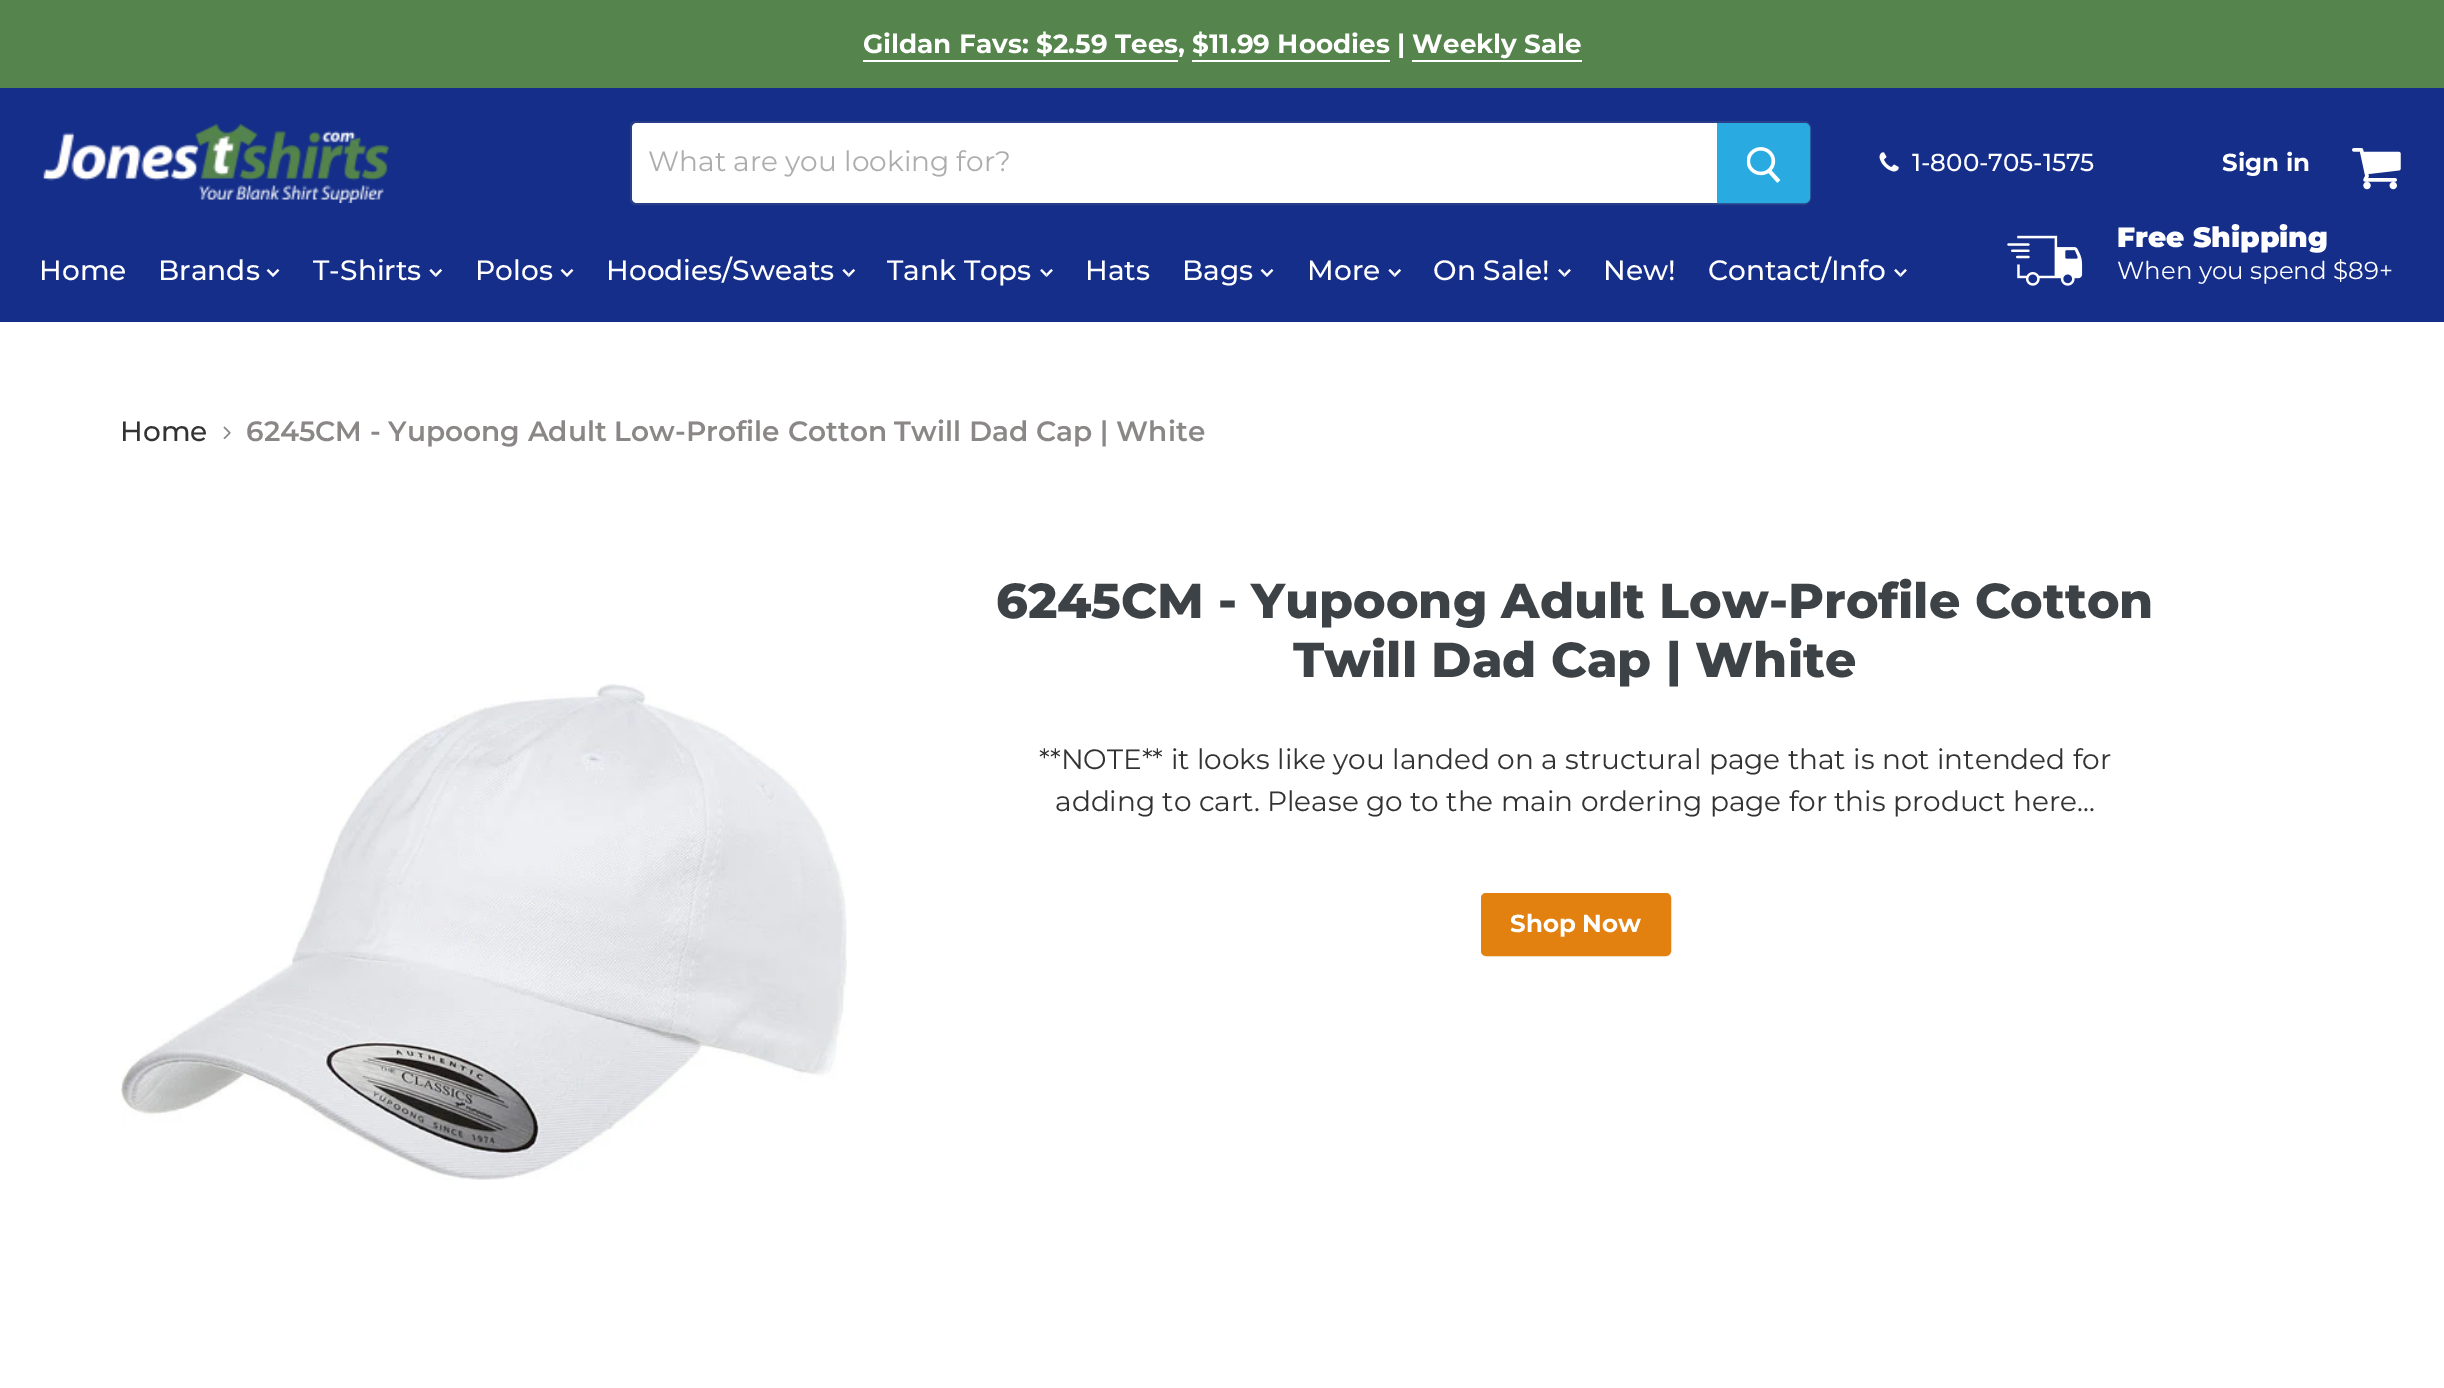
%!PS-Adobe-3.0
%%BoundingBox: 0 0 2444 1388
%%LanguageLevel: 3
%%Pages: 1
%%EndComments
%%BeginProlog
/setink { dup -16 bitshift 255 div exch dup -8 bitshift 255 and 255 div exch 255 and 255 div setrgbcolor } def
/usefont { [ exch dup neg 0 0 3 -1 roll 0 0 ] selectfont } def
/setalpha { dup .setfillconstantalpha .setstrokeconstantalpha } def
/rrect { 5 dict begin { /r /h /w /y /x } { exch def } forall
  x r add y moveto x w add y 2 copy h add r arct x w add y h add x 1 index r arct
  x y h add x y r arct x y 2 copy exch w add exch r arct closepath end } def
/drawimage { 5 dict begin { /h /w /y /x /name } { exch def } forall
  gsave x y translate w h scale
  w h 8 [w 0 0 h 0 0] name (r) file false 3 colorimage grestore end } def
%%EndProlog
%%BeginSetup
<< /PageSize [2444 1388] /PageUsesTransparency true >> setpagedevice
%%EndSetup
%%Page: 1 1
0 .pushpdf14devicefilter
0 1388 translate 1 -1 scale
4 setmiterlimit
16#FFFFFF setink
0 0 2444 1388 rectfill
16#55844D setink
0 0 2444 88 rectfill
/Montserrat-Bold 26.25 usefont
16#FFFFFF setink
863 53 moveto (Gildan Favs: $2.59 Tees, $11.99 Hoodies | Weekly Sale) show
[
    [863 60 315 2 16#FFFFFF]
    [1192 60 198 2 16#FFFFFF]
    [1412 60 170 2 16#FFFFFF]
    [0 88 2444 234 16#142E8A]
] { aload pop setink rectfill } forall
(img1.raw) 43 123 346 80 drawimage
0.2 setalpha
16#7F7F7F setink
2 setlinewidth
635 122 moveto 1804 122 lineto 1807.5 122 1810 124.5 1810 128 curveto 1810 198 lineto 1810 201.5 1807.5 204 1804 204 curveto 635 204 lineto 633 204 631 202 631 200 curveto 631 126 lineto 631 124 633 122 635 122 curveto closepath stroke
1 setalpha
16#FFFFFF setink
637 123 moveto 1717 123 lineto 1717 203 lineto 637 203 lineto 634 203 632 201 632 198 curveto 632 128 lineto 632 125 634 123 637 123 curveto closepath fill
/Montserrat-Regular 28 usefont
16#ADADAD setink
648 171 moveto (What are you looking for?) show
16#29ABE1 setink
1718 124 moveto 1805 124 lineto 1807 124 1809 126 1809 128 curveto 1809 198 lineto 1809 200 1807 202 1805 202 curveto 1718 202 lineto closepath gsave fill grestore
stroke
(img2.raw) 1747 147 34 36 drawimage
(img3.raw) 1879 152 20 20 drawimage
/Montserrat-Medium 24.5 usefont
16#FFFFFF setink
1912 171 moveto (1-800-705-1575) show
/Montserrat-Bold 24.5 usefont
2222 171 moveto (Sign in) show
(img4.raw) 2352 148 49 42 drawimage
/Montserrat-Medium 28 usefont
39 280 moveto (Home) show
158 280 moveto (Brands) show
(img5.raw) 266 268 14 9 drawimage
313 280 moveto (T-Shirts) show
(img6.raw) 429 268 14 10 drawimage
475 280 moveto (Polos) show
(img5.raw) 560 268 14 9 drawimage
606 280 moveto (Hoodies/Sweats) show
(img6.raw) 842 268 14 10 drawimage
887 280 moveto (Tank Tops) show
(img7.raw) 1040 268 13 10 drawimage
1085 280 moveto (Hats) show
1182 280 moveto (Bags) show
(img5.raw) 1260 268 14 9 drawimage
1307 280 moveto (More) show
(img6.raw) 1388 268 14 10 drawimage
1433 280 moveto (On Sale!) show
(img7.raw) 1558 268 13 10 drawimage
1603 280 moveto (New!) show
1708 280 moveto (Contact/Info) show
(img7.raw) 1894 268 13 10 drawimage
(img8.raw) 2007 235 76 51 drawimage
/Montserrat-Black 28 usefont
2117 247 moveto (Free Shipping) show
/Montserrat-Regular 24.5 usefont
2117 279 moveto (When you spend $89+) show
/Montserrat-Medium 28 usefont
16#333333 setink
120 441 moveto (Home) show
(img9.raw) 223 426 8 13 drawimage
/Montserrat-SemiBold 28 usefont
16#8A8786 setink
246 441 moveto (6245CM - Yupoong Adult Low-Profile Cotton Twill Dad Cap | White) show
(img10.raw) 121 684 726 496 drawimage
/Montserrat-ExtraBold 49 usefont
16#3D4246 setink
996 618 moveto (6245CM - Yupoong Adult Low-Profile Cotton) show
1293 677 moveto (Twill Dad Cap | White) show
/Montserrat-Regular 28 usefont
16#333333 setink
1039 769 moveto (**NOTE** it looks like you landed on a structural page that is not intended for) show
1055 811 moveto (adding to cart. Please go to the main ordering page for this product here...) show
16#E28010 setink
1482 894 188 61 4 rrect gsave fill grestore
stroke
/Montserrat-Bold 24.5 usefont
16#FFFFFF setink
1510 932 moveto (Shop Now) show
.poppdf14devicefilter showpage
%%EOF
